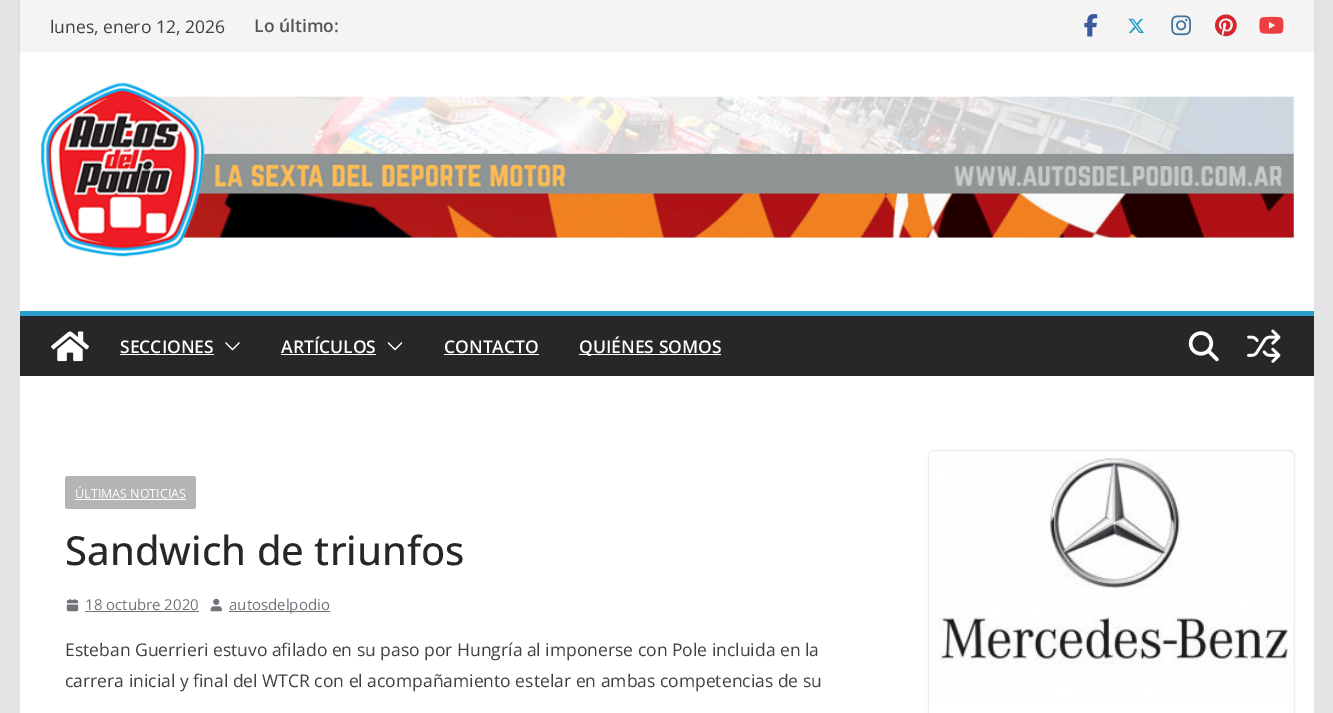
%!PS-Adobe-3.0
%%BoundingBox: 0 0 1333 713
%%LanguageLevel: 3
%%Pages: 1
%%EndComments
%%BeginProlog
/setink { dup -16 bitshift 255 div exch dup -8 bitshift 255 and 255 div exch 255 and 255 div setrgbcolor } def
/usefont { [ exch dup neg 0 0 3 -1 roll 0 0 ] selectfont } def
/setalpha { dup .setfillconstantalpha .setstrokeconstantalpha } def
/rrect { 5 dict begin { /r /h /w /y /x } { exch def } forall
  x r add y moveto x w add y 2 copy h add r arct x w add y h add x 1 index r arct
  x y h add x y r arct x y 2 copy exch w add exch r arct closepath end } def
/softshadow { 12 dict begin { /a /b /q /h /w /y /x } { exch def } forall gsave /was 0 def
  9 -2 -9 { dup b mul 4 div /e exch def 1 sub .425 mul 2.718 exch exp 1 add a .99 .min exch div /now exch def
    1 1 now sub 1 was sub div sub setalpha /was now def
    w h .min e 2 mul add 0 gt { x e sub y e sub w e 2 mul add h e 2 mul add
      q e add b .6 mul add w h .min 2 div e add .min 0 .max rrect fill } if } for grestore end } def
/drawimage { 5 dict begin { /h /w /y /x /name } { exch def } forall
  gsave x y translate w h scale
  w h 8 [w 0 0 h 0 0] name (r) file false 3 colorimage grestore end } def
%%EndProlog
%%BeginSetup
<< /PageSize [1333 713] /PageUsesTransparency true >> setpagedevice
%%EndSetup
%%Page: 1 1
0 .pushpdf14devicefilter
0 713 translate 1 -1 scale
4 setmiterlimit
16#E4E4E7 setink
0 0 1333 713 rectfill
16#FFFFFF setink
20 51 1294 260 rectfill
16#000000 setink
20 0 1294 51 0 1 0.1 softshadow
16#F4F4F5 setink
20 0 1294 51 rectfill
/OpenSans-Regular 17.5 usefont
16#3F3F46 setink
50 33 moveto (lunes, enero 12, 2026) show
/OpenSans-SemiBold 17.5 usefont
16#555555 setink
254 32 moveto (Lo último:) show
(img1.raw) 1084 14 14 23 drawimage
(img2.raw) 1128 18 16 16 drawimage
(img3.raw) 1171 15 20 21 drawimage
(img4.raw) 1215 14 22 23 drawimage
(img5.raw) 1259 16 25 18 drawimage
(img6.raw) 41 82 1253 175 drawimage
16#27272A setink
20 316 1294 60 rectfill
16#289DCC setink
20 311 1294 5 rectfill
(img7.raw) 51 331 38 31 drawimage
16#FFFFFF setink
120 353 moveto (SECCIONES) show
120 354 94 1 rectfill
(img8.raw) 225 342 15 9 drawimage
281 353 moveto (ARTÍCULOS) show
281 354 95 1 rectfill
(img9.raw) 387 342 16 9 drawimage
444 353 moveto (CONTACTO) show
444 354 95 1 rectfill
579 354 142 1 rectfill
579 353 moveto (QUIÉNES SOMOS) show
(img10.raw) 1188 331 31 31 drawimage
(img11.raw) 1247 329 34 34 drawimage
20 376 1294 337 rectfill
16#B5B5B5 setink
65 476 131 33 2.5 rrect fill
/OpenSans-Regular 12.5 usefont
16#FFFFFF setink
75 498 moveto (ÚLTIMAS NOTICIAS) show
75 499 111 1 rectfill
/OpenSans-Medium 40 usefont
16#27272A setink
65 565 moveto (Sandwich de triunfos) show
(img12.raw) 66 598 13 14 drawimage
/OpenSans-Regular 15 usefont
16#71717A setink
85 610 moveto (18 octubre 2020) show
85 611 114 1 rectfill
(img13.raw) 210 598 12 14 drawimage
229 611 101 1 rectfill
229 610 moveto (autosdelpodio) show
/OpenSans-Regular 17.5 usefont
16#3F3F46 setink
65 656 moveto (Esteban Guerrieri estuvo afilado en su paso por Hungría al imponerse con Pole incluida en la) show
65 687 moveto (carrera inicial y final del WTCR con el acompañamiento estelar en ambas competencias de su) show
gsave
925 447 moveto 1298 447 lineto 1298 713 lineto 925 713 lineto closepath 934 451 moveto 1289 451 lineto 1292 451 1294 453 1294 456 curveto 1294 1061 lineto 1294 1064 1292 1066 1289 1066 curveto 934 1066 lineto 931 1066 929 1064 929 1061 curveto 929 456 lineto 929 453 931 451 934 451 curveto closepath eoclip newpath
16#000000 setink
929 451 365 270 5 1 0.24 softshadow
grestore
(img14.raw) 929 451 365 250 drawimage
.poppdf14devicefilter showpage
%%EOF
